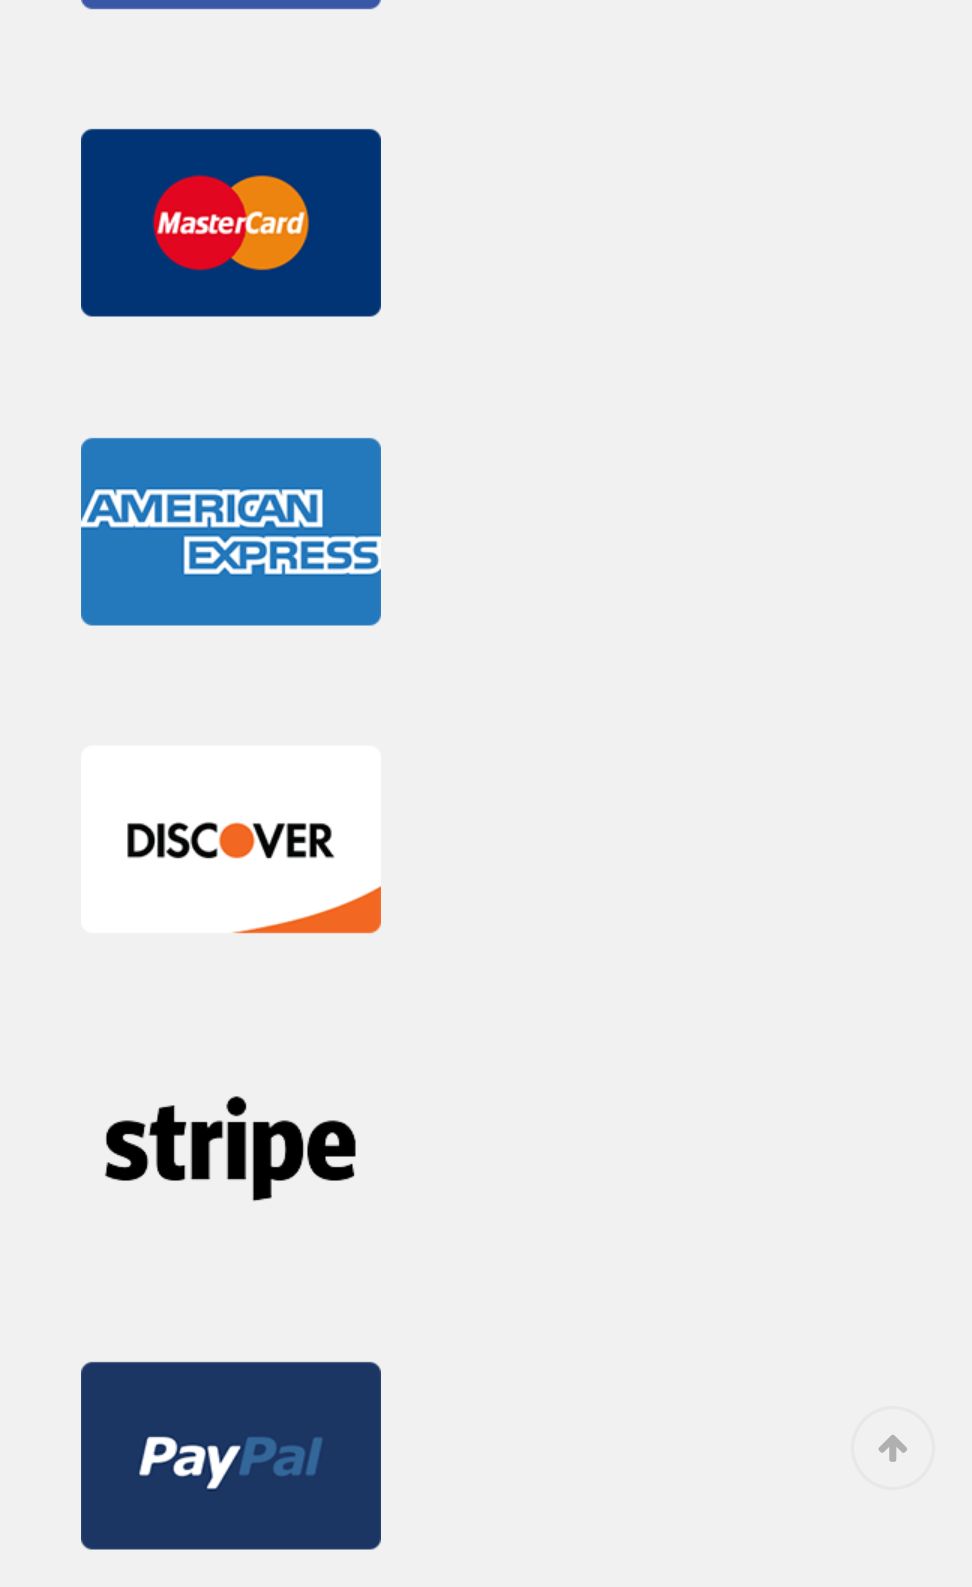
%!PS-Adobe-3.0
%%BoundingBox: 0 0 972 1587
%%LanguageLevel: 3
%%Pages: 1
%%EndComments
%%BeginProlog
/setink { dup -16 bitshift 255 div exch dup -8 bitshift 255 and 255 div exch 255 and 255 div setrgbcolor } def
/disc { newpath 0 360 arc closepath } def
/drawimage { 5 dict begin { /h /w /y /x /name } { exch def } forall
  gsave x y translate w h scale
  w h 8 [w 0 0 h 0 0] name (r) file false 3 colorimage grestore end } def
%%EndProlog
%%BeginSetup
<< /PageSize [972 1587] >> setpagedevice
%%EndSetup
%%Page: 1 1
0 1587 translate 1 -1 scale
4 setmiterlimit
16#F1F1F1 setink
0 0 972 1587 rectfill
(img1.raw) 81 0 300 10 drawimage
(img2.raw) 81 128 300 189 drawimage
(img3.raw) 81 437 300 189 drawimage
(img4.raw) 81 745 300 189 drawimage
(img5.raw) 104 1096 252 106 drawimage
(img6.raw) 81 1361 300 189 drawimage
16#E8E8E8 setink
3 setlinewidth
893 1448 40.5 disc stroke
(img7.raw) 878 1434 30 28 drawimage
showpage
%%EOF
